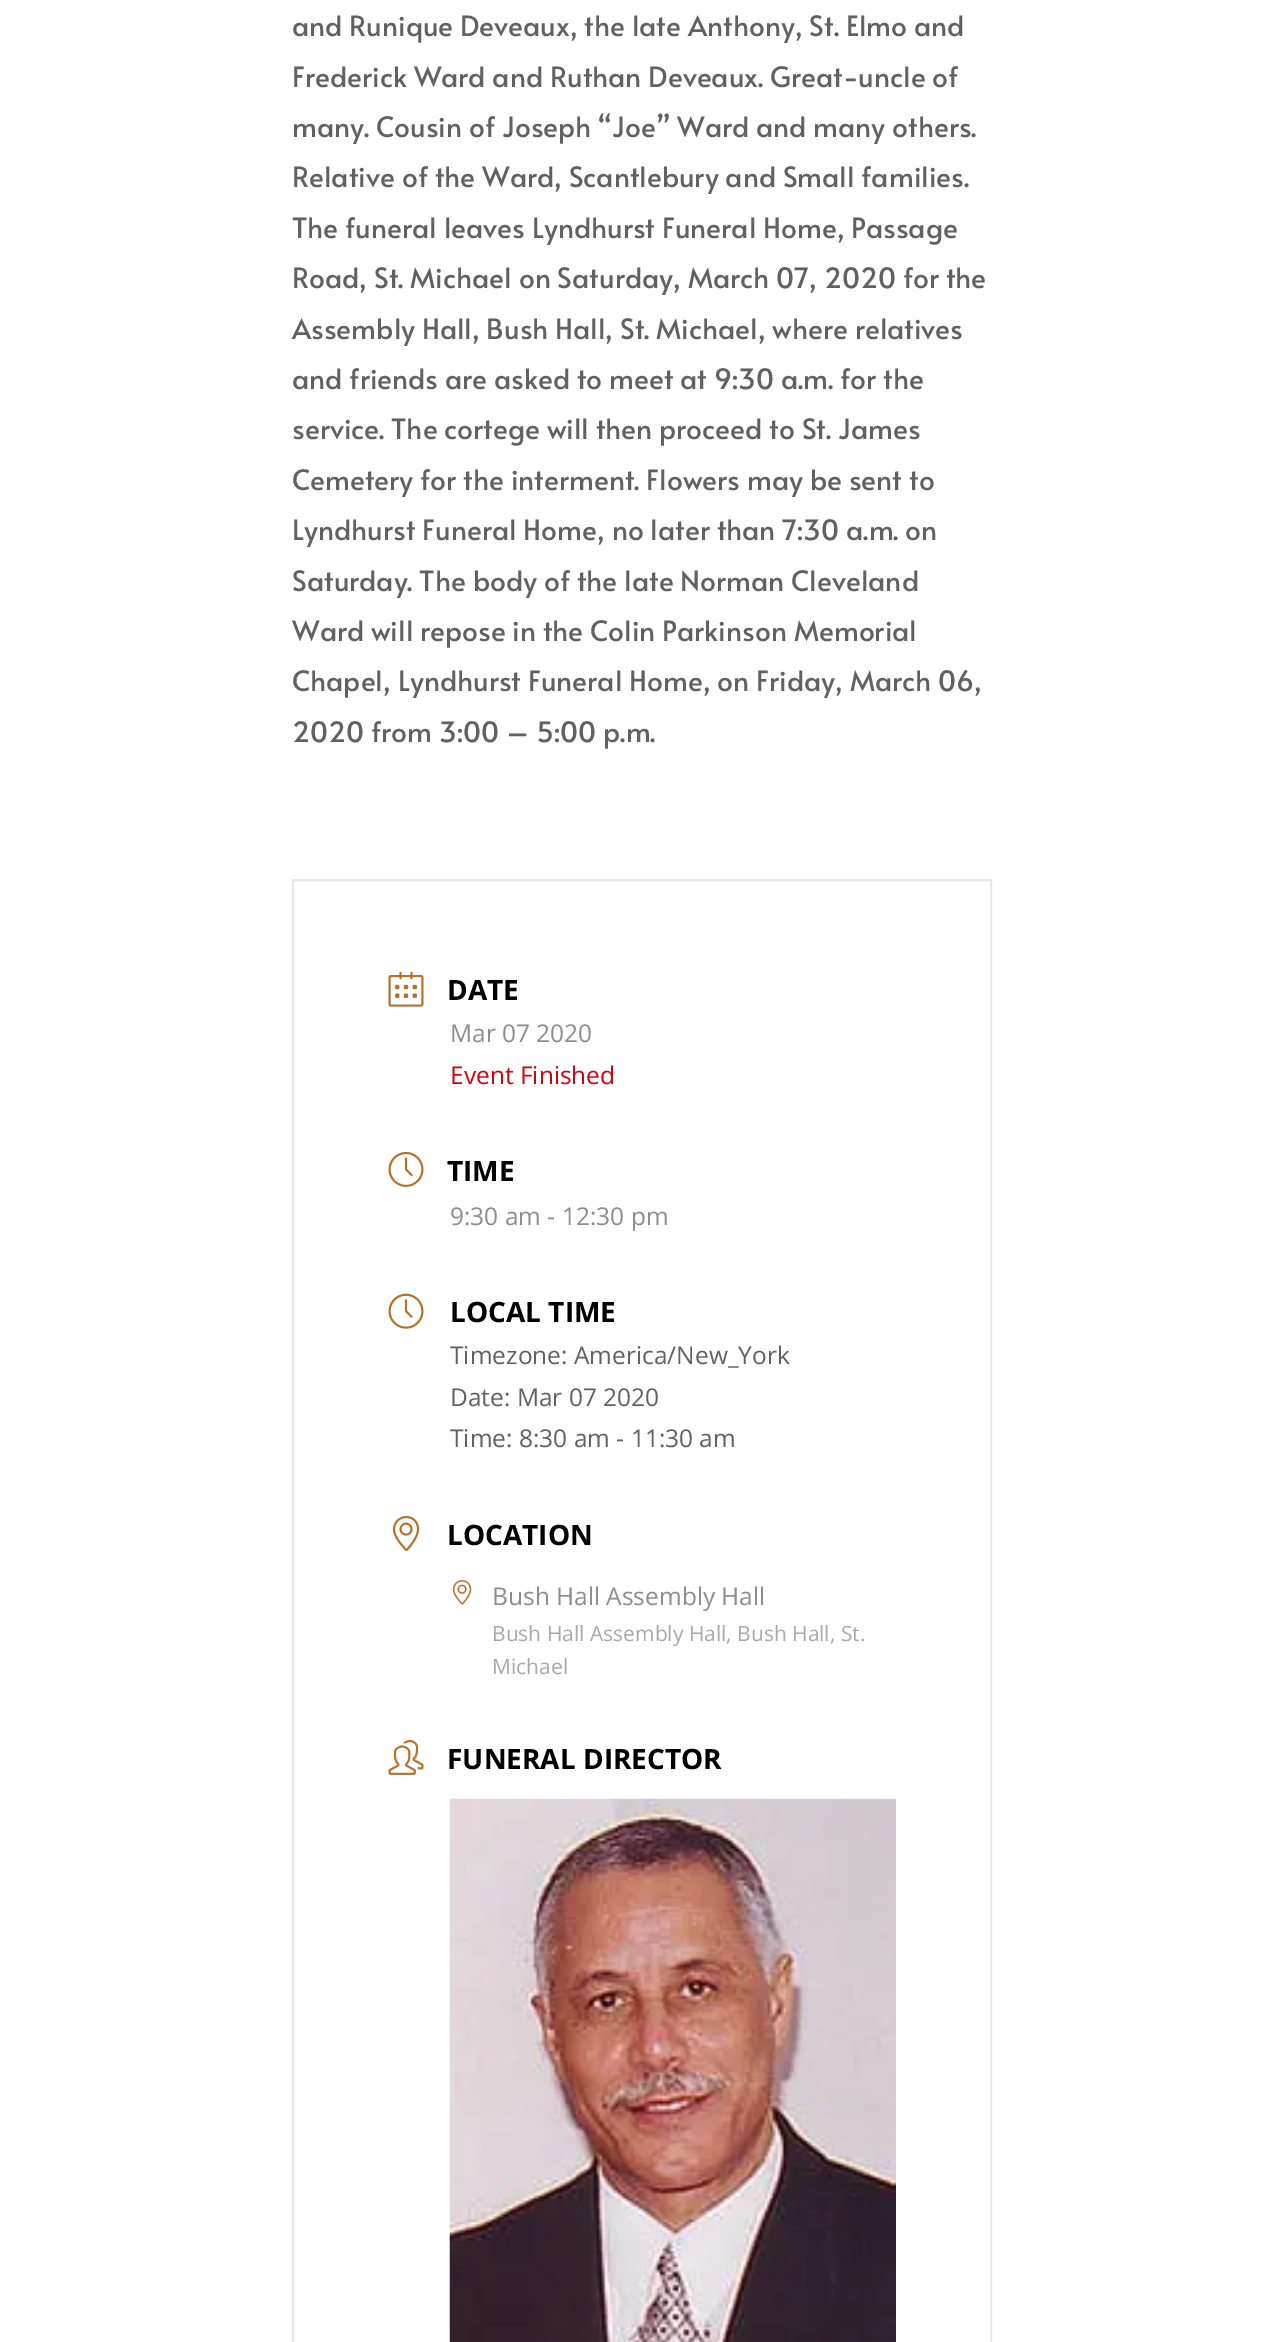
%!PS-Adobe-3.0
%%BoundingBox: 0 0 1283 2342
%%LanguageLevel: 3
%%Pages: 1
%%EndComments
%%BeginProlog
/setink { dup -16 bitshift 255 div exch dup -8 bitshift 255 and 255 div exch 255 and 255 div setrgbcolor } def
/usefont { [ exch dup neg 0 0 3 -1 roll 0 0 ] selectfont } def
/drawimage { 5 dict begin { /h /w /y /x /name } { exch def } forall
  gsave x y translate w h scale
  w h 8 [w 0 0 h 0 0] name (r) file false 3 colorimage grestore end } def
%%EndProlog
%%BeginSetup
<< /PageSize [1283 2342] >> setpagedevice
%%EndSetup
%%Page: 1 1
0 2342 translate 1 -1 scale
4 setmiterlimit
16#FFFFFF setink
0 0 1283 2342 rectfill
/Alata-Regular 28 usefont
16#616161 setink
[
    [(and Runique Deveaux, the late Anthony, St. Elmo and) 292 36]
    [(Frederick Ward and Ruthan Deveaux. Great-uncle of) 292 87]
    [(many. Cousin of Joseph “Joe” Ward and many others.) 292 137]
    [(Relative of the Ward, Scantlebury and Small families.) 292 187]
    [(The funeral leaves Lyndhurst Funeral Home, Passage) 292 238]
    [(Road, St. Michael on Saturday, March 07, 2020 for the) 292 288]
    [(Assembly Hall, Bush Hall, St. Michael, where relatives) 292 339]
    [(and friends are asked to meet at 9:30 a.m. for the) 292 389]
    [(service. The cortege will then proceed to St. James) 292 439]
    [(Cemetery for the interment. Flowers may be sent to) 292 490]
    [(Lyndhurst Funeral Home, no later than 7:30 a.m. on) 292 540]
    [(Saturday. The body of the late Norman Cleveland) 292 591]
    [(Ward will repose in the Colin Parkinson Memorial) 292 641]
    [(Chapel, Lyndhurst Funeral Home, on Friday, March 06,) 292 691]
    [(2020 from 3:00 – 5:00 p.m.) 292 742]
] { aload pop moveto show } forall
16#E6E7E8 setink
2 setlinewidth
293 880 698 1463 rectstroke
(img1.raw) 388 971 36 36 drawimage
/OpenSans-Bold 28 usefont
16#000000 setink
447 1000 moveto (DATE) show
/OpenSans-Regular 24.5 usefont
16#8D8D8D setink
450 1042 moveto (Mar 07 2020) show
16#D8000C setink
450 1084 moveto (Event Finished) show
(img2.raw) 388 1151 36 36 drawimage
/OpenSans-Bold 28 usefont
16#000000 setink
447 1181 moveto (TIME) show
/OpenSans-Regular 24.5 usefont
16#8D8D8D setink
450 1225 moveto (9:30 am - 12:30 pm) show
(img3.raw) 388 1293 36 36 drawimage
/OpenSans-Bold 28 usefont
16#000000 setink
450 1322 moveto (LOCAL TIME) show
/OpenSans-Regular 24.5 usefont
16#616161 setink
[
    [(Timezone: America/New_York) 450 1364]
    [(Date: Mar 07 2020) 450 1406]
    [(Time: 8:30 am - 11:30 am) 450 1447]
] { aload pop moveto show } forall
(img4.raw) 392 1515 28 36 drawimage
/OpenSans-Bold 28 usefont
16#000000 setink
447 1545 moveto (LOCATION) show
(img5.raw) 452 1580 20 25 drawimage
/OpenSans-Regular 24.5 usefont
16#8D8D8D setink
492 1605 moveto (Bush Hall Assembly Hall) show
/OpenSans-Regular 21 usefont
16#A9A9A9 setink
492 1641 moveto (Bush Hall Assembly Hall, Bush Hall, St.) show
492 1674 moveto (Michael) show
(img6.raw) 388 1739 36 36 drawimage
/OpenSans-Bold 28 usefont
16#000000 setink
447 1769 moveto (FUNERAL DIRECTOR) show
(img7.raw) 449 1798 447 544 drawimage
showpage
%%EOF
